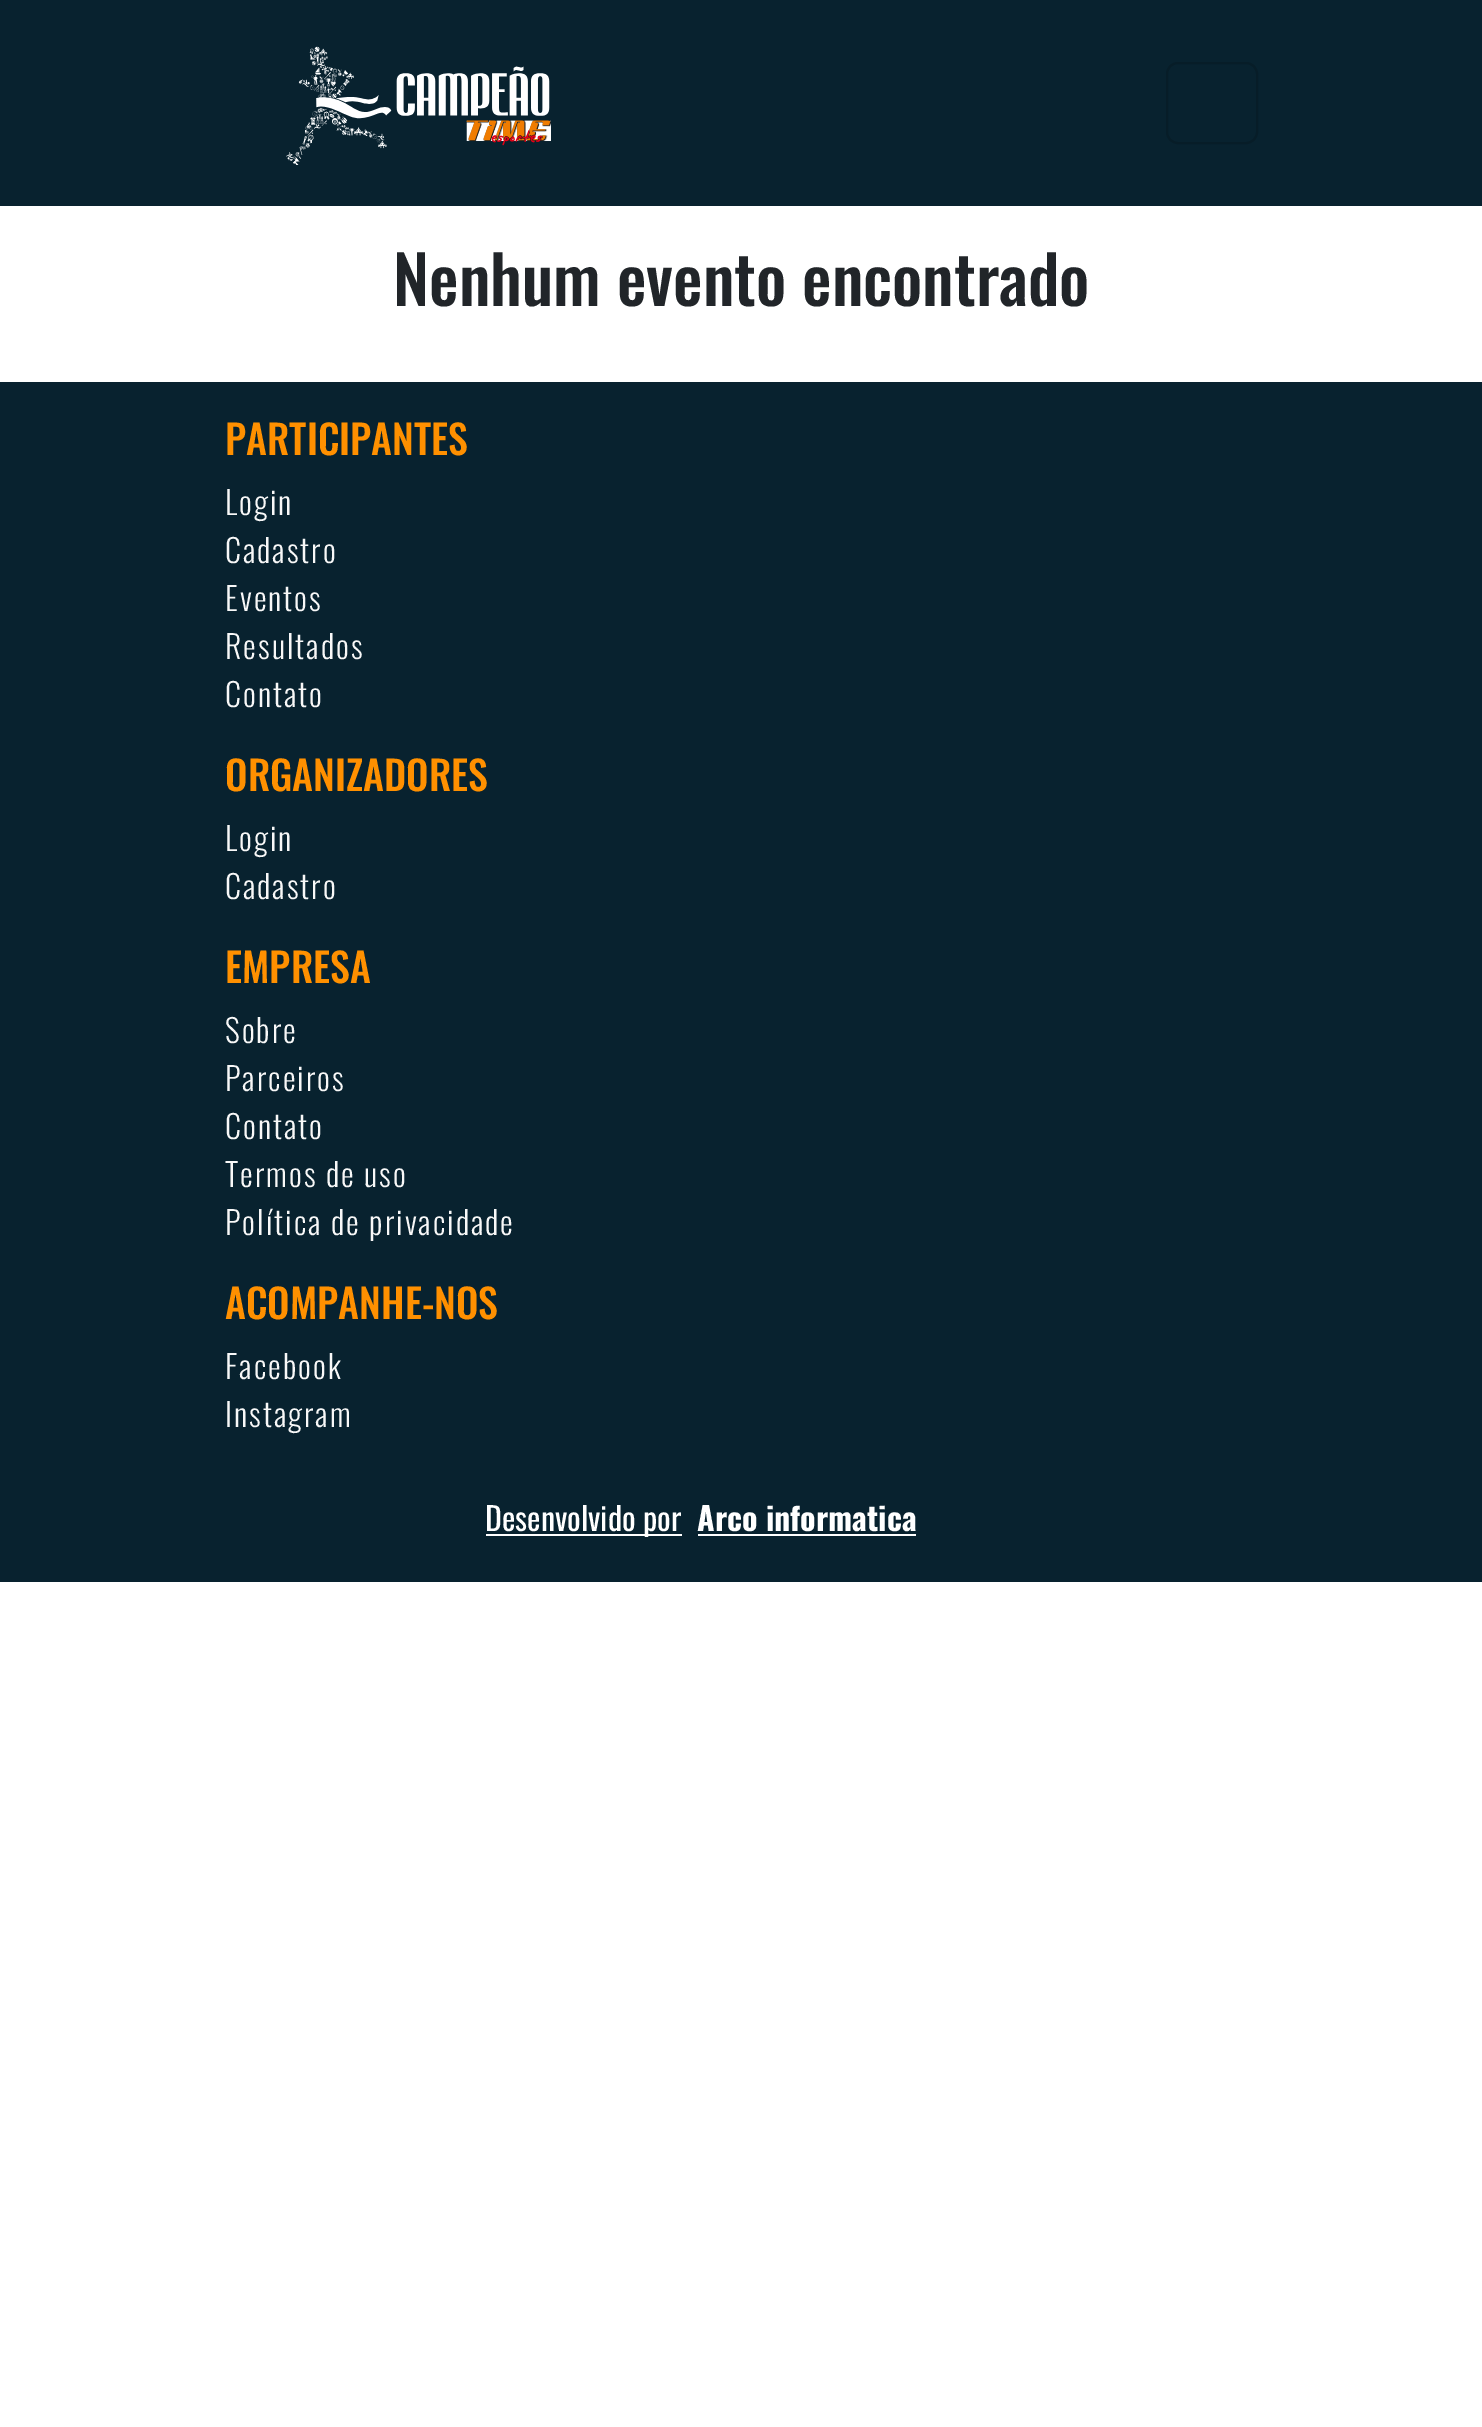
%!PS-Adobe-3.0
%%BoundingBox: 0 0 1482 2427
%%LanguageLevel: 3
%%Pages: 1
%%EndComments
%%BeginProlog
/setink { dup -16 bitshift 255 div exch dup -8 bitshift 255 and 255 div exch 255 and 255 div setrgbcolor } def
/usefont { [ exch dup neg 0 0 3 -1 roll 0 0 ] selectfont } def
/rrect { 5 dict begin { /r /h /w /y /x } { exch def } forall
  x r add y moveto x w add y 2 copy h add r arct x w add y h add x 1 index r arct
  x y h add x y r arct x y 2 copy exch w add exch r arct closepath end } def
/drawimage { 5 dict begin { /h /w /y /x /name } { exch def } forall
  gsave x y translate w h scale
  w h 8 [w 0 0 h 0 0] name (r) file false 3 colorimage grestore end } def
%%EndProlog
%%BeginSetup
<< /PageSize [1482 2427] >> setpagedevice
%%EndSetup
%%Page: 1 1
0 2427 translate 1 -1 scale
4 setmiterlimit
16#FFFFFF setink
0 0 1482 2427 rectfill
16#08222F setink
0 0 1482 206 rectfill
(img1.raw) 286 46 265 119 drawimage
16#071D28 setink
2 setlinewidth
1167 63 90 80 11 rrect stroke
/Oswald-Medium 66.25 usefont
16#212529 setink
393 306 moveto (Nenhum evento encontrado) show
16#08222F setink
0 382 1482 1200 rectfill
/Oswald-Medium 40 usefont
16#FF9000 setink
225 455 moveto (PARTICIPANTES) show
/Oswald-Light 32 usefont
16#F8F8F8 setink
225 515 moveto 2 0 (Login) ashow
225 563 moveto 2 0 (Cadastro) ashow
225 611 moveto 2 0 (Eventos) ashow
225 659 moveto 2 0 (Resultados) ashow
225 707 moveto 2 0 (Contato) ashow
/Oswald-Medium 40 usefont
16#FF9000 setink
225 791 moveto (ORGANIZADORES) show
/Oswald-Light 32 usefont
16#F8F8F8 setink
225 851 moveto 2 0 (Login) ashow
225 899 moveto 2 0 (Cadastro) ashow
/Oswald-Medium 40 usefont
16#FF9000 setink
225 983 moveto (EMPRESA) show
/Oswald-Light 32 usefont
16#F8F8F8 setink
225 1043 moveto 2 0 (Sobre) ashow
225 1091 moveto 2 0 (Parceiros) ashow
225 1139 moveto 2 0 (Contato) ashow
225 1187 moveto 2 0 (Termos de uso) ashow
225 1235 moveto 2 0 (Política de privacidade) ashow
/Oswald-Medium 40 usefont
16#FF9000 setink
225 1319 moveto (ACOMPANHE-NOS) show
/Oswald-Light 32 usefont
16#F8F8F8 setink
225 1379 moveto 2 0 (Facebook) ashow
225 1427 moveto 2 0 (Instagram) ashow
16#FFFFFF setink
486 1534 196 2 rectfill
/Oswald-Regular 32 usefont
485 1531 moveto (Desenvolvido por) show
/Oswald-Bold 32 usefont
697 1531 moveto (Arco informatica) show
698 1534 218 2 rectfill
showpage
%%EOF
